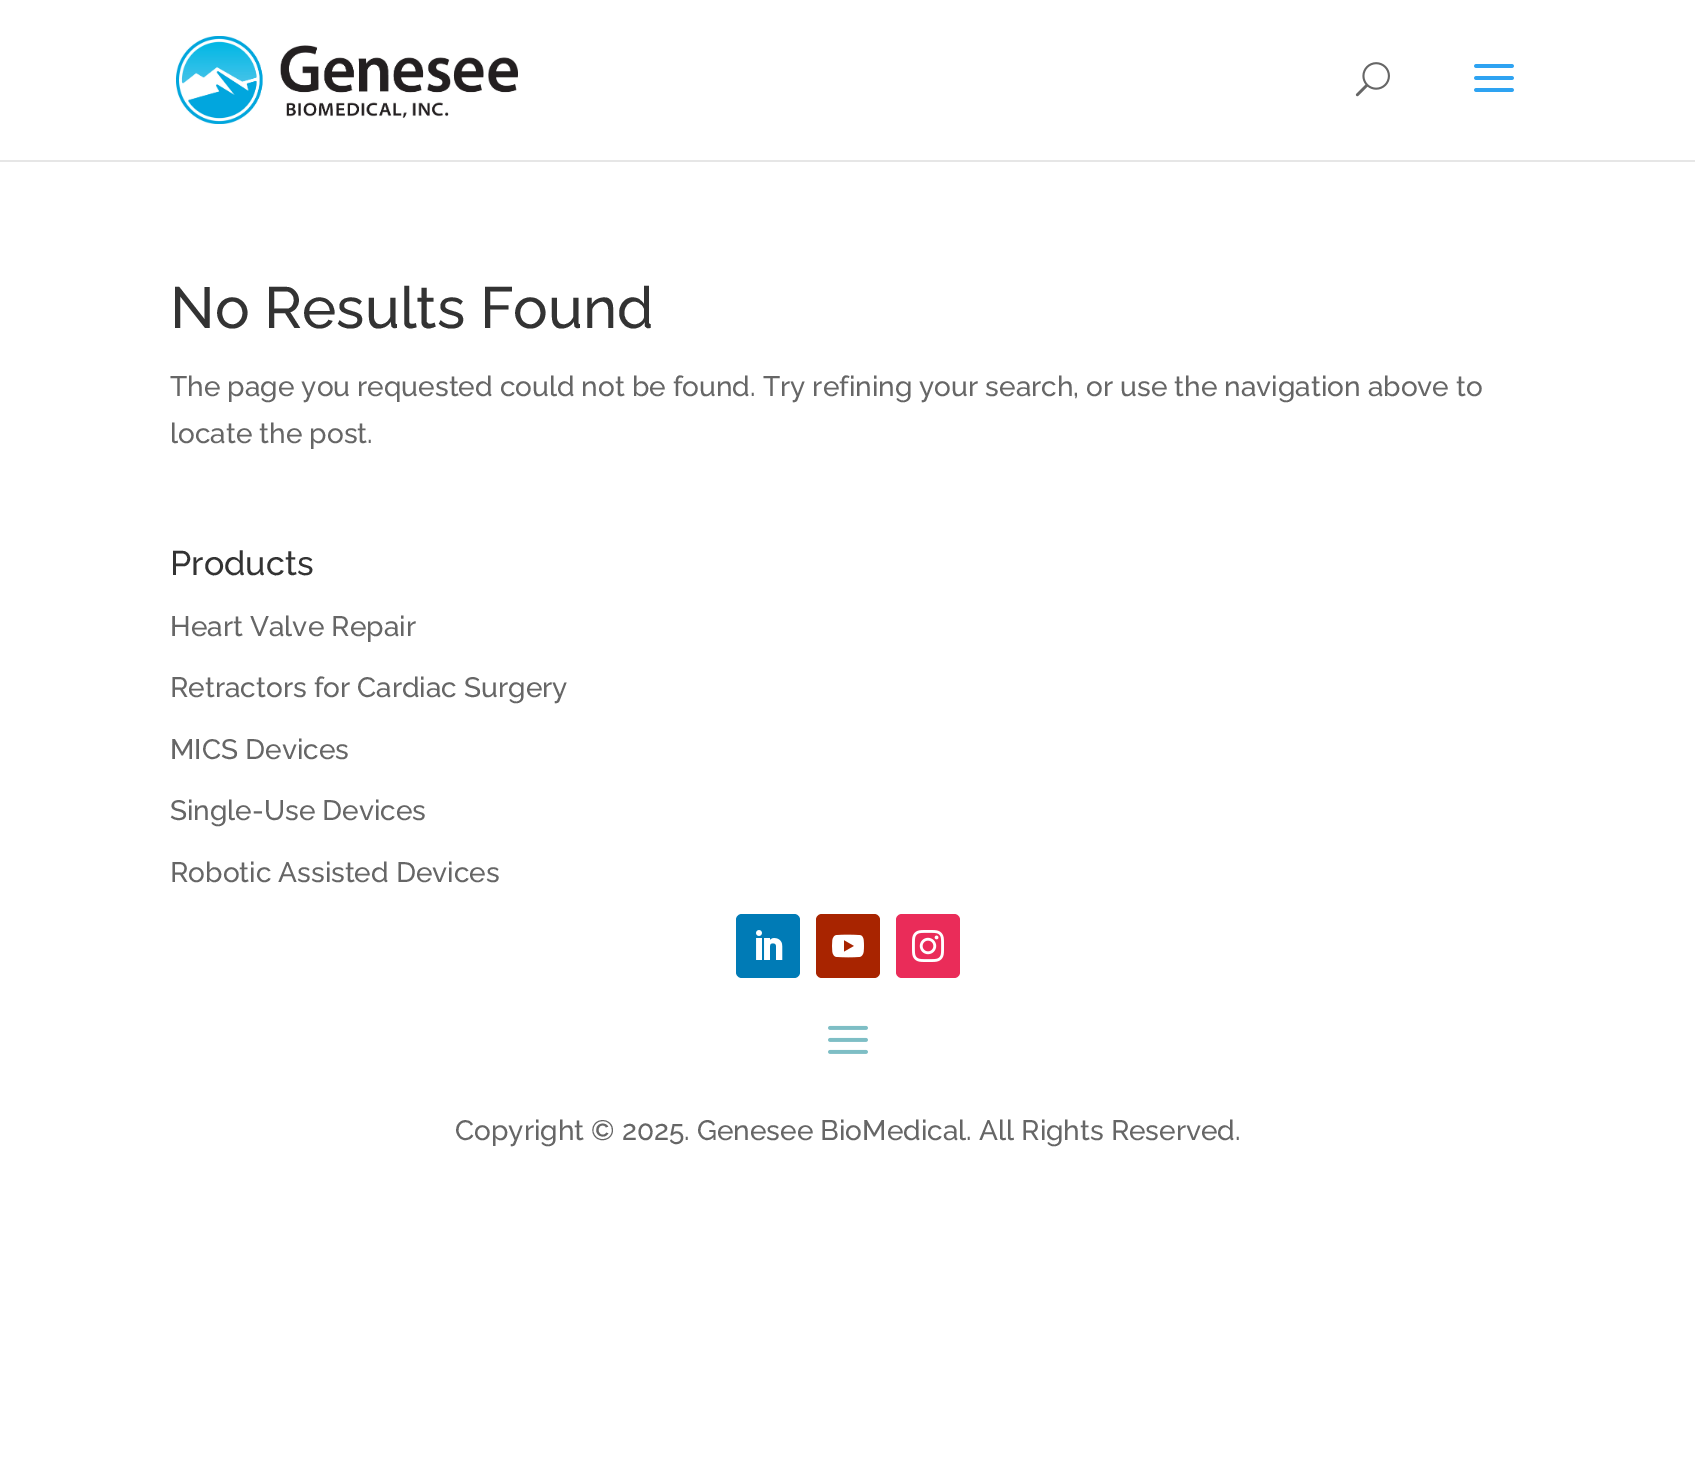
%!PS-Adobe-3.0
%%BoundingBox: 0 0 1695 1471
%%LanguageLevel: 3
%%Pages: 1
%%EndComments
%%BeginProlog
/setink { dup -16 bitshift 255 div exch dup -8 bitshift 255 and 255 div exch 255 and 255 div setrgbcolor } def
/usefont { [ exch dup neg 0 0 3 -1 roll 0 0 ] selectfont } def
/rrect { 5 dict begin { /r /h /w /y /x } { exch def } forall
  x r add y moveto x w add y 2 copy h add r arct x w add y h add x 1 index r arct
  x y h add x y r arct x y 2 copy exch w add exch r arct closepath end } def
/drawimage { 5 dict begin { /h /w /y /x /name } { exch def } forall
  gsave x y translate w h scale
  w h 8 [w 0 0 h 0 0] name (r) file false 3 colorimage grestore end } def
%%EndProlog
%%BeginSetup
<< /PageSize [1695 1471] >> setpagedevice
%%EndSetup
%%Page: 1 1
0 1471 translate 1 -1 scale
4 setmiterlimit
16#FFFFFF setink
0 0 1695 1471 rectfill
16#E6E6E6 setink
0 160 1695 2 rectfill
(img1.raw) 176 36 342 88 drawimage
(img2.raw) 1355 62 35 35 drawimage
(img3.raw) 1474 64 40 28 drawimage
/Raleway-Thin 58 usefont
16#333333 setink
170 328 moveto (No Results Found) show
/Raleway-Thin 28 usefont
16#666666 setink
170 396 moveto (The page you requested could not be found. Try refining your search, or use the navigation above to) show
170 443 moveto (locate the post.) show
/Raleway-Thin 34 usefont
16#333333 setink
170 575 moveto (Products) show
/Raleway-Thin 28 usefont
16#666666 setink
[
    [(Heart Valve Repair) 170 636]
    [(Retractors for Cardiac Surgery) 170 697]
    [(MICS Devices) 170 759]
    [(Single-Use Devices) 170 820]
    [(Robotic Assisted Devices) 170 882]
] { aload pop moveto show } forall
16#007BB6 setink
736 914 64 64 6 rrect fill
(img4.raw) 756 930 27 30 drawimage
16#A82400 setink
816 914 64 64 6 rrect fill
(img5.raw) 832 934 32 24 drawimage
16#EA2C59 setink
896 914 64 64 6 rrect fill
(img6.raw) 912 930 32 32 drawimage
(img7.raw) 828 1025 40 29 drawimage
16#666666 setink
455 1140 moveto (Copyright © 2025. Genesee BioMedical. All Rights Reserved.) show
showpage
%%EOF
